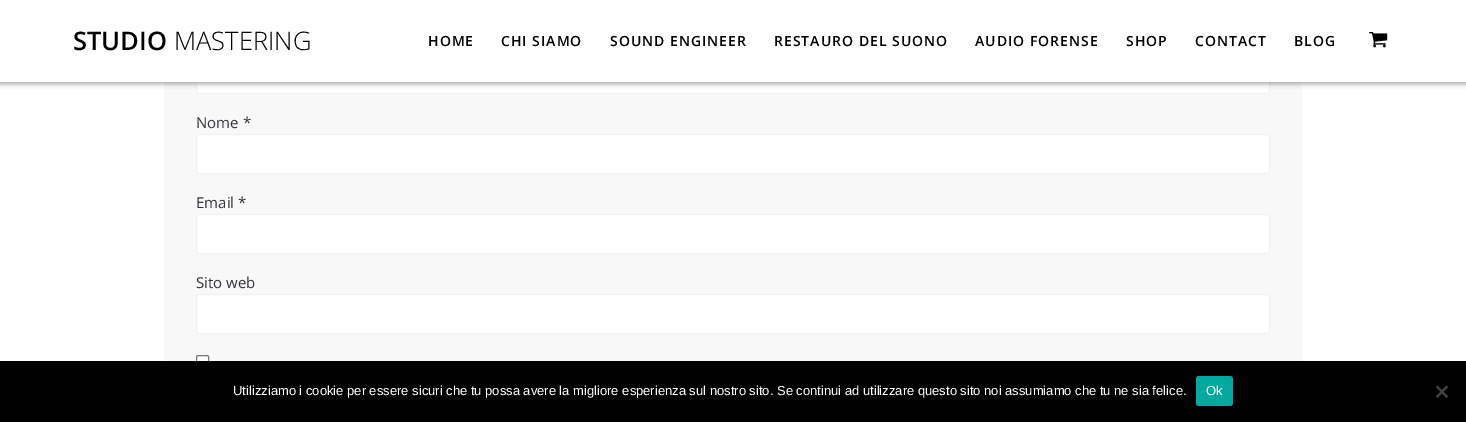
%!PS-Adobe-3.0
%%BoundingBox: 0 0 1466 422
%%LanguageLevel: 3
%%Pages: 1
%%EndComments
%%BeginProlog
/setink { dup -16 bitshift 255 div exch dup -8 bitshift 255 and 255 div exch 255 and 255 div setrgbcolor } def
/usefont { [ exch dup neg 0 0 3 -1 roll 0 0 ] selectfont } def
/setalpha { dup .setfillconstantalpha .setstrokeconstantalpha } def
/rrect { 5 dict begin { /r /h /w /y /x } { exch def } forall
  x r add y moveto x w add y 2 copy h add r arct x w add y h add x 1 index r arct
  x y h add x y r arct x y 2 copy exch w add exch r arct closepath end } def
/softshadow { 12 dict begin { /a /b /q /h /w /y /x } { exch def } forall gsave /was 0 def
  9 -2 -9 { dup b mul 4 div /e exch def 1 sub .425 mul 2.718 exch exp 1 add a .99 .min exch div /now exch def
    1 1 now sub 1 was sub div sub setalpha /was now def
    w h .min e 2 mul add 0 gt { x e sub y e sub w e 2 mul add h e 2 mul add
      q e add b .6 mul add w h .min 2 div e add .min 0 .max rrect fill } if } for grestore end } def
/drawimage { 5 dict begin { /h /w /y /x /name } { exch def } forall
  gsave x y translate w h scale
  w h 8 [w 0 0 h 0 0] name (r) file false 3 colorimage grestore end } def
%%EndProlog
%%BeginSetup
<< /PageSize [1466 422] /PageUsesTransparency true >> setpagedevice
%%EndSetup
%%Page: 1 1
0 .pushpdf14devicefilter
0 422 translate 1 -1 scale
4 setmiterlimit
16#FFFFFF setink
0 0 1466 422 rectfill
16#F8F8F8 setink
164 82 1138 279 rectfill
16#FFFFFF setink
196.5 -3.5 1073 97 2.5 rrect gsave fill grestore
16#F1F1F1 setink
stroke
16#000000 setink
-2 -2 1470 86 0 2.5 0.33 softshadow
16#FFFFFF setink
0 0 1466 82 rectfill
/OpenSans-SemiBold 25.5 usefont
16#000000 setink
73 50 moveto (STUDIO) show
/OpenSans-Light 25.5 usefont
174 50 moveto (MASTERING) show
/OpenSans-SemiBold 14 usefont
428 46 moveto 1 0 (HOME) ashow
501 46 moveto 1 0 (CHI SIAMO) ashow
610 46 moveto 1 0 (SOUND ENGINEER) ashow
774 46 moveto 1 0 (RESTAURO DEL SUONO) ashow
975 46 moveto 1 0 (AUDIO FORENSE) ashow
1126 46 moveto 1 0 (SHOP) ashow
1195 46 moveto 1 0 (CONTACT) ashow
1294 46 moveto 1 0 (BLOG) ashow
(img1.raw) 1369 32 19 16 drawimage
/OpenSans-Regular 15 usefont
16#313439 setink
196 128 moveto (Nome *) show
16#FFFFFF setink
196.5 134.5 1073 39 2.5 rrect gsave fill grestore
16#F1F1F1 setink
stroke
16#313439 setink
196 208 moveto (Email *) show
16#FFFFFF setink
196.5 214.5 1073 39 2.5 rrect gsave fill grestore
16#F1F1F1 setink
stroke
16#313439 setink
196 288 moveto (Sito web) show
16#FFFFFF setink
196.5 294.5 1073 39 2.5 rrect gsave fill grestore
16#F1F1F1 setink
stroke
16#FFFFFF setink
196.5 355.5 12 12 1.5 rrect gsave fill grestore
16#767676 setink
stroke
16#000000 setink
0 361 1466 61 rectfill
/LiberationSans-Regular 13 usefont
16#FFFFFF setink
233 395 moveto (Utilizziamo i cookie per essere sicuri che tu possa avere la migliore esperienza sul nostro sito. Se continui ad utilizzare questo sito noi assumiamo che tu ne sia felice.) show
16#00A99D setink
1196 376 37 30 3 rrect fill
16#FFFFFF setink
1206 395 moveto (Ok) show
16#404040 setink
1446.5 385.5 moveto 1448 387 lineto 1437.5 398 lineto 1436 396.5 lineto closepath fill
1436 387 moveto 1437.5 385.5 lineto 1448 396.5 lineto 1446.5 398 lineto closepath fill
.poppdf14devicefilter showpage
%%EOF
